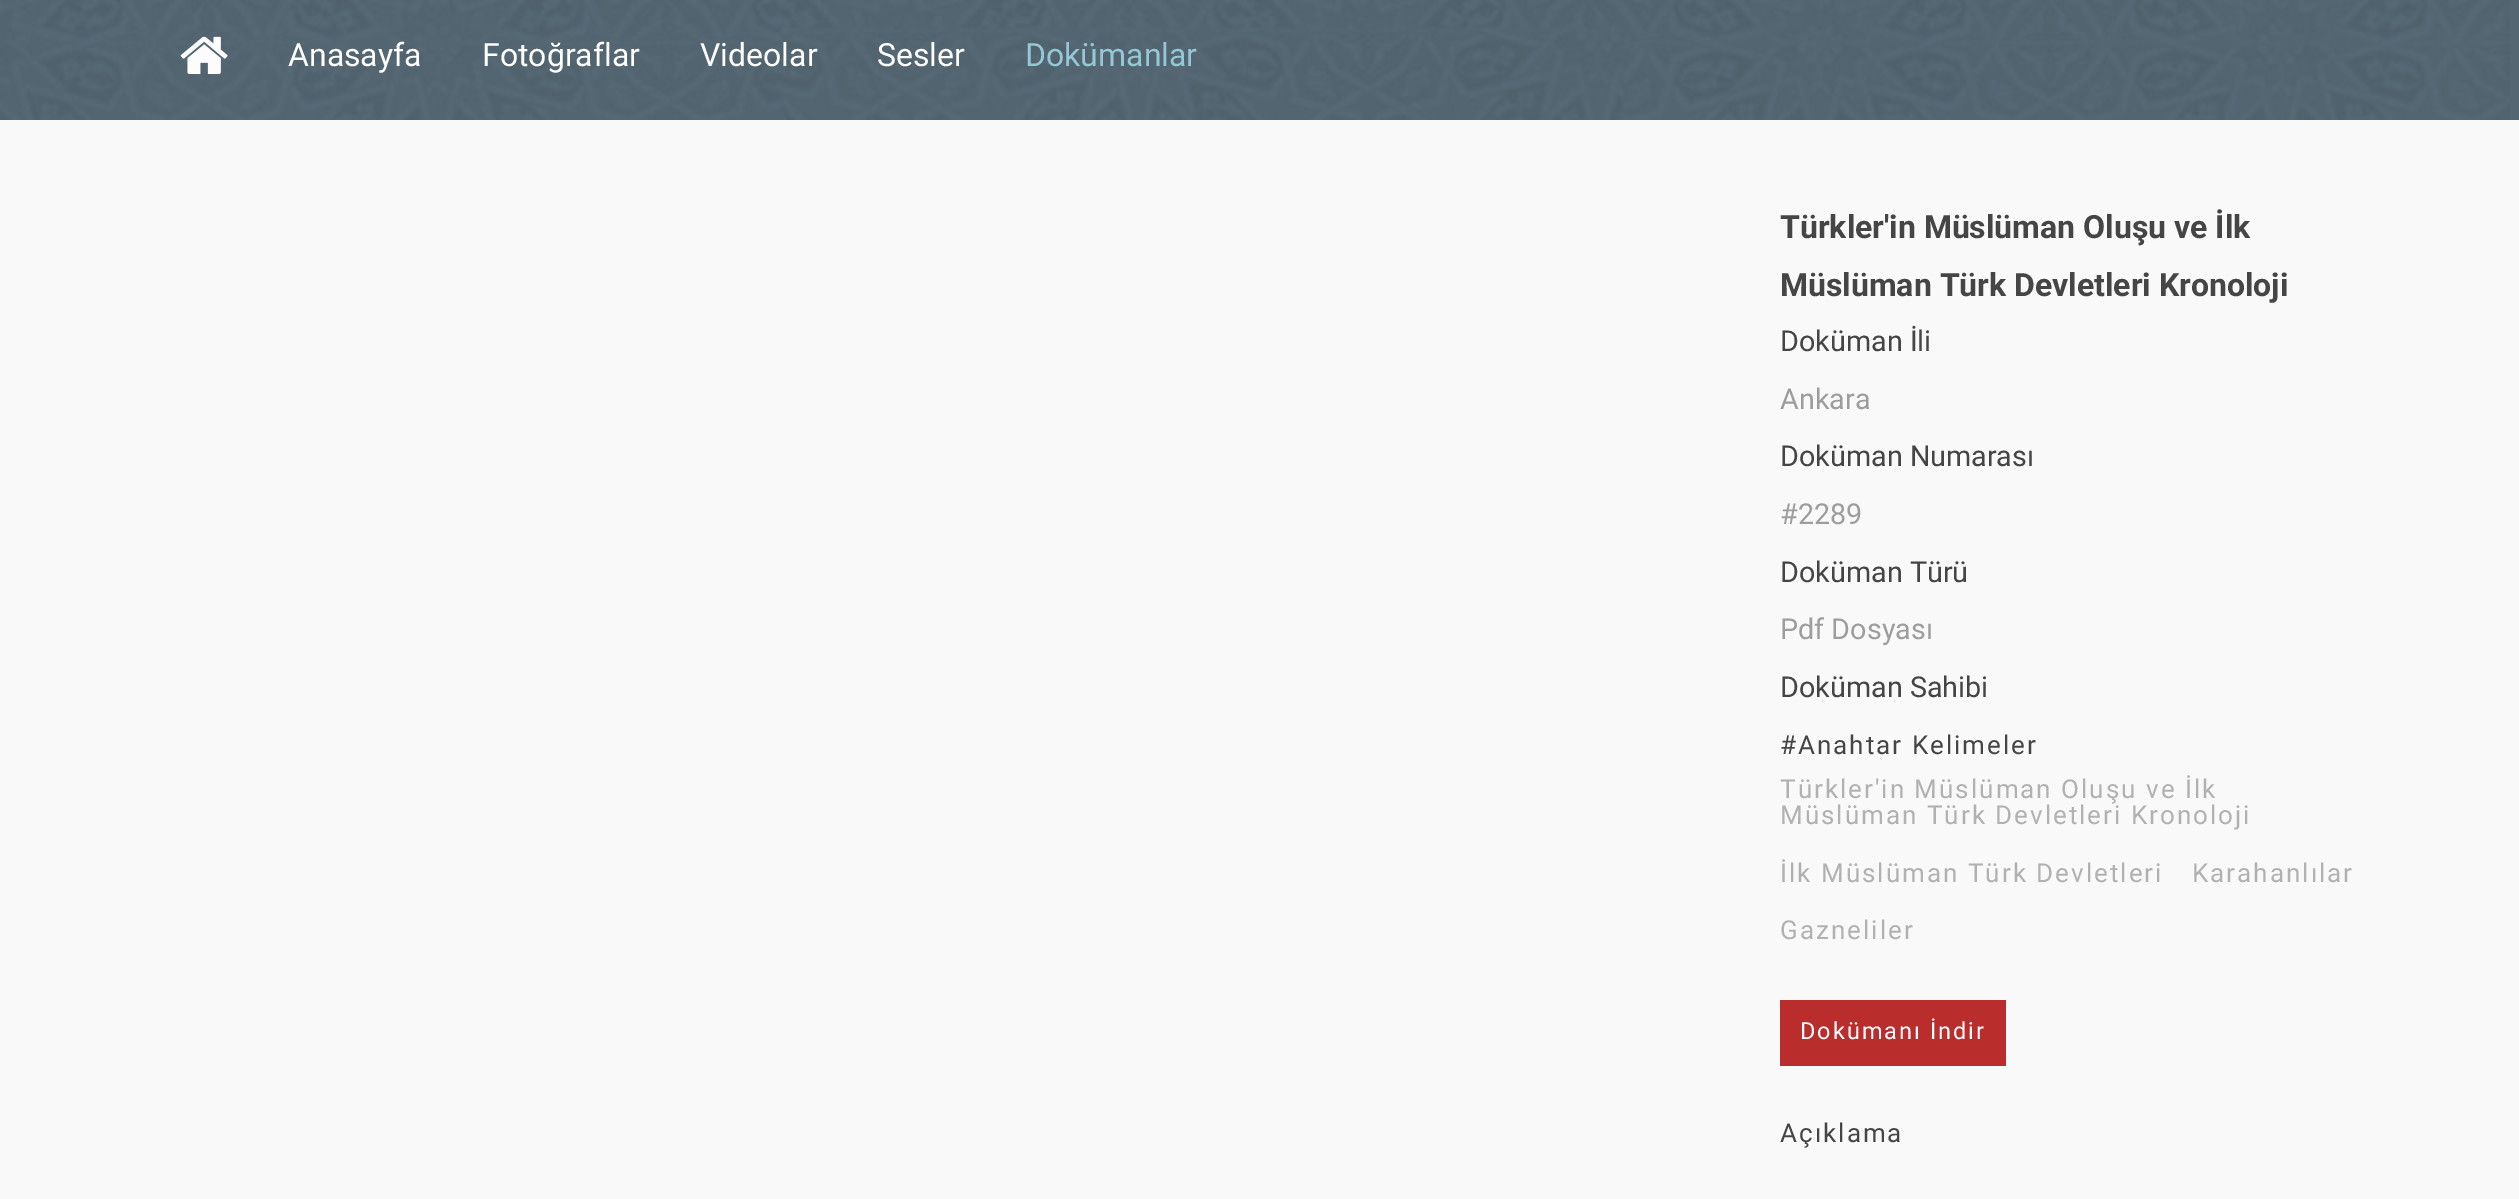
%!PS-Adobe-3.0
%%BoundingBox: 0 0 2519 1199
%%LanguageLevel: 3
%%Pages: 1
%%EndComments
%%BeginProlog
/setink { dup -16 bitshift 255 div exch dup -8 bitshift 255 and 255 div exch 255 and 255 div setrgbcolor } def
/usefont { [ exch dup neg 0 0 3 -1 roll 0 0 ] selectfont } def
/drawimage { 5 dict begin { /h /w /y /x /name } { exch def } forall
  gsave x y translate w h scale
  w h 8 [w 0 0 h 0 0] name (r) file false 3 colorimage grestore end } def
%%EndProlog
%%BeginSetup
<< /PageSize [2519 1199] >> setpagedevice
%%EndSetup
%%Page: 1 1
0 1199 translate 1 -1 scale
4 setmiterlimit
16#F9F9F9 setink
0 0 2519 1199 rectfill
16#546672 setink
2510 0 9 120 rectfill
(img1.raw) 0 0 2510 120 drawimage
(img2.raw) 180 36 48 38 drawimage
/Roboto-Regular 32 usefont
16#FFFFFF setink
[
    [(Anasayfa) 288 66]
    [(Fotoğraflar) 482 66]
    [(Videolar) 700 66]
    [(Sesler) 877 66]
] { aload pop moveto show } forall
16#95C8D6 setink
1025 66 moveto (Dokümanlar) show
/Roboto-Bold 32 usefont
16#454545 setink
1780 238 moveto (Türkler'in Müslüman Oluşu ve İlk) show
1780 296 moveto (Müslüman Türk Devletleri Kronoloji) show
/Roboto-Regular 28.75 usefont
1780 351 moveto (Doküman İli) show
16#9D9D9D setink
1780 409 moveto (Ankara) show
16#454545 setink
1780 466 moveto (Doküman Numarası) show
16#9D9D9D setink
1780 524 moveto (#2289) show
16#454545 setink
1780 582 moveto (Doküman Türü) show
16#9D9D9D setink
1780 639 moveto (Pdf Dosyası) show
16#454545 setink
1780 697 moveto (Doküman Sahibi) show
/Roboto-Regular 26 usefont
1780 754 moveto 2 0 (#Anahtar Kelimeler) ashow
16#B1B1B1 setink
1780 798 moveto 2 0 (Türkler'in Müslüman Oluşu ve İlk) ashow
1780 824 moveto 2 0 (Müslüman Türk Devletleri Kronoloji) ashow
1780 882 moveto 2 0 (İlk Müslüman Türk Devletleri) ashow
2192 882 moveto 2 0 (Karahanlılar) ashow
1780 939 moveto 2 0 (Gazneliler) ashow
16#BA2D2D setink
1780 1000 226 66 rectfill
/Roboto-Regular 23.5 usefont
16#FFFFFF setink
1800 1039 moveto 2 0 (Dokümanı İndir) ashow
/Roboto-Regular 26 usefont
16#454545 setink
1780 1142 moveto 2 0 (Açıklama) ashow
showpage
%%EOF
